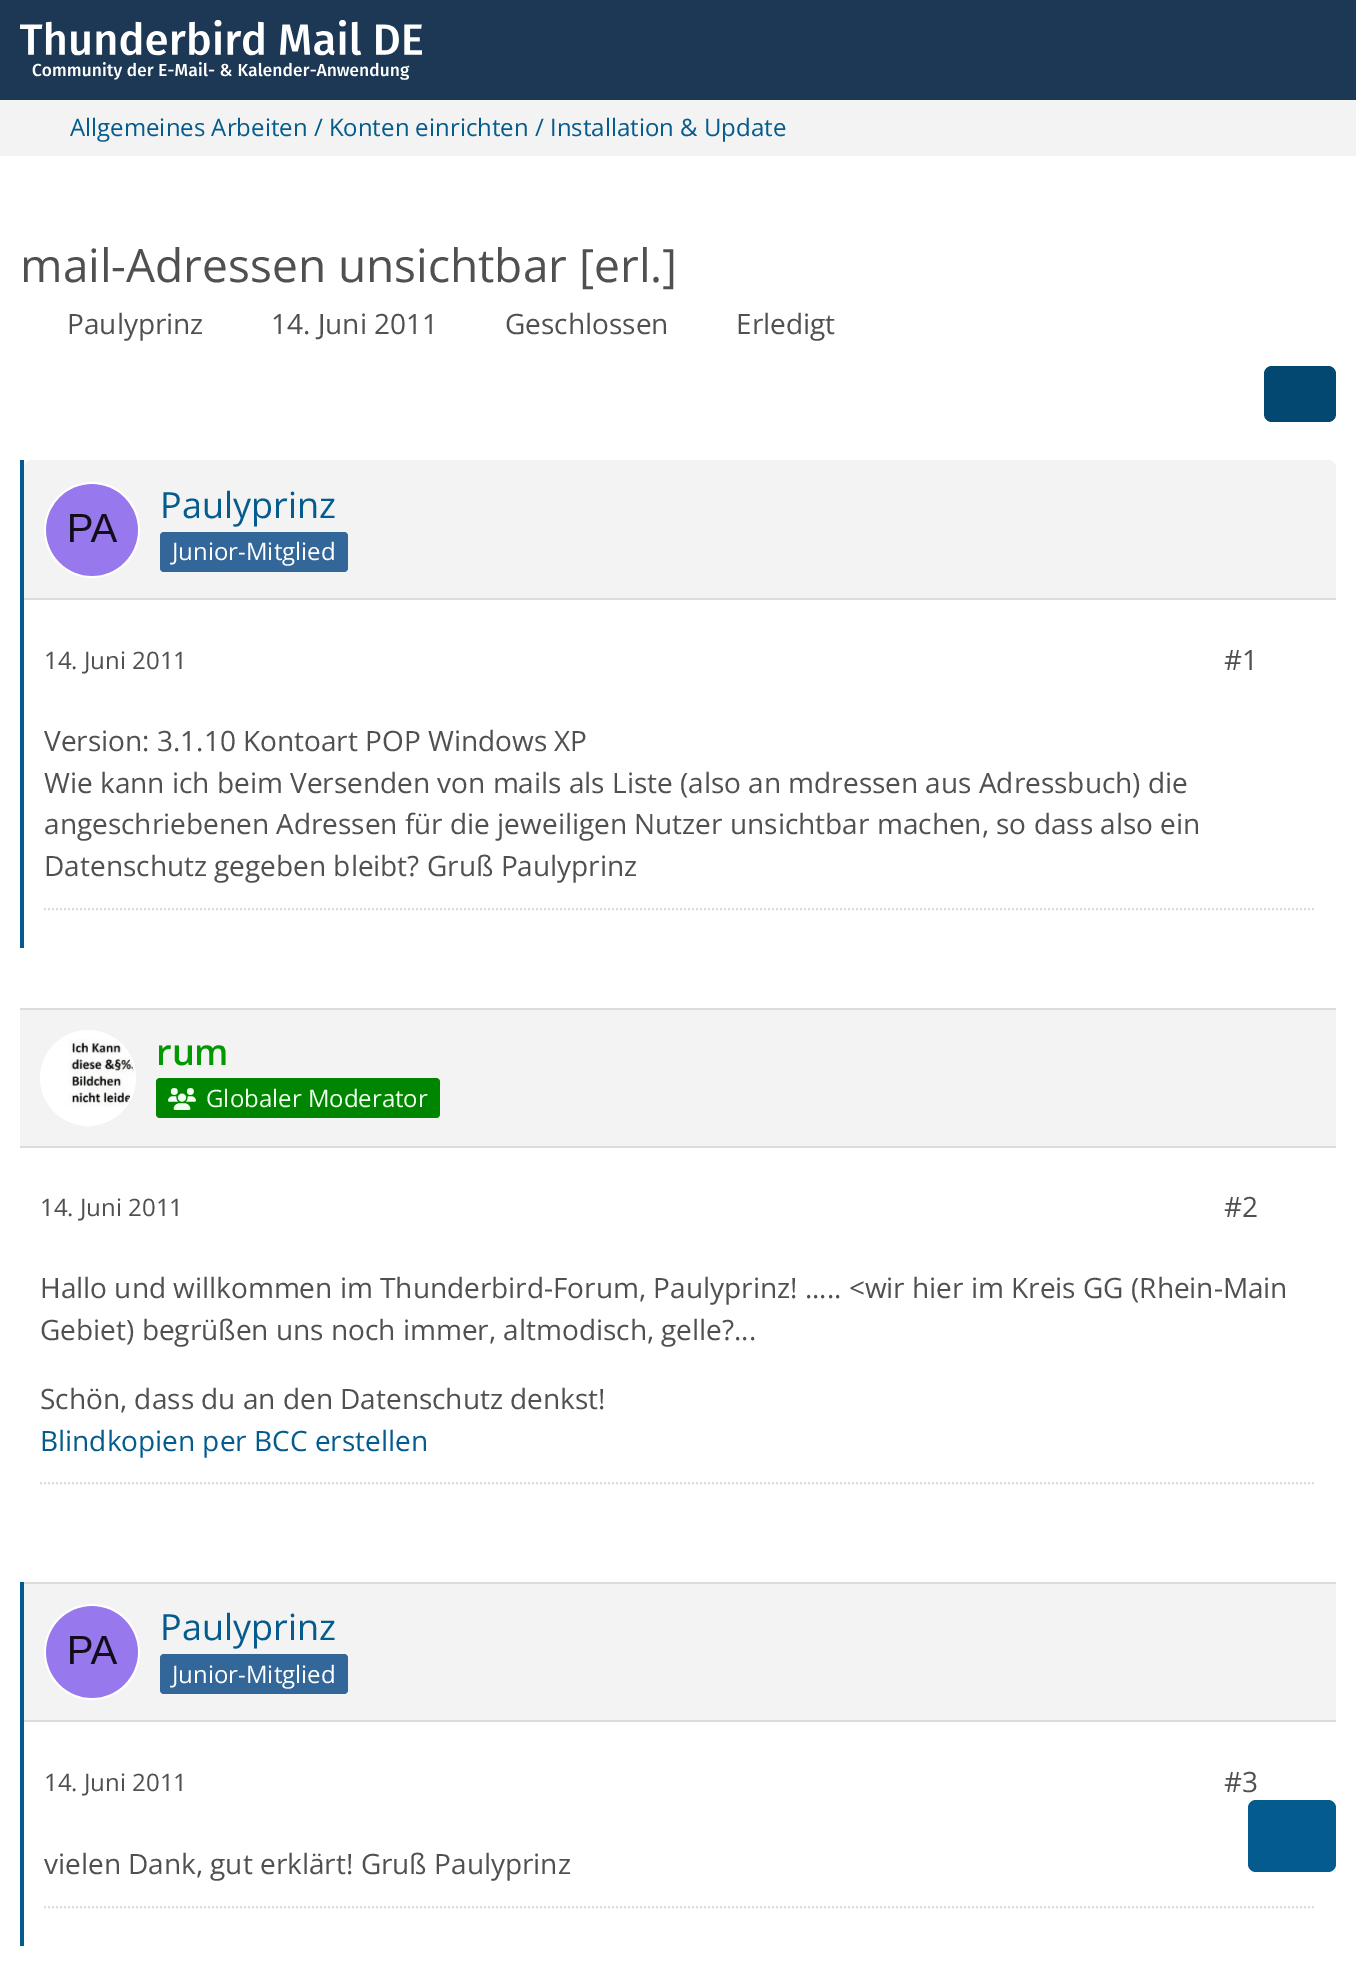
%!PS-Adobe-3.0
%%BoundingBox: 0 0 1356 1971
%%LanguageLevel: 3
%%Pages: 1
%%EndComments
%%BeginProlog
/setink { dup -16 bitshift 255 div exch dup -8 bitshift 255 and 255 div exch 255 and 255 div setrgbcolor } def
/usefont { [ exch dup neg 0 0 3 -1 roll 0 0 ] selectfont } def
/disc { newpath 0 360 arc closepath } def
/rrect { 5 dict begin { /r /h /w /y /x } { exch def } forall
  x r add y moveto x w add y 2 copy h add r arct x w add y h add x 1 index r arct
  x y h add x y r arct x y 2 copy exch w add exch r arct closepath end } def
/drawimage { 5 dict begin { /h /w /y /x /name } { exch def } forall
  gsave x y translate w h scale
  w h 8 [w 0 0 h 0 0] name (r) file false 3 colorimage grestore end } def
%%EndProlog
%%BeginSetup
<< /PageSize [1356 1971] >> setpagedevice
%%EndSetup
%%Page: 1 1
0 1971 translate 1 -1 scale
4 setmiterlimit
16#F3F3F3 setink
0 0 1356 1971 rectfill
16#1C3854 setink
0 0 1356 100 rectfill
(img1.raw) 20 20 402 60 drawimage
/OpenSans-Regular 24 usefont
16#045B8D setink
70 136 moveto (Allgemeines Arbeiten / Konten einrichten / Installation & Update) show
16#FFFFFF setink
0 156 1356 1815 rectfill
/OpenSans-Regular 46 usefont
16#505050 setink
20 282 moveto (mail-Adressen unsichtbar [erl.]) show
/OpenSans-Regular 28 usefont
[
    [(Paulyprinz) 67 334]
    [(14. Juni 2011) 271 334]
    [(Geschlossen) 505 334]
    [(Erledigt) 736 334]
] { aload pop moveto show } forall
16#024870 setink
1264 366 72 56 8 rrect fill
16#045B8D setink
20 460 4 488 rectfill
16#F3F3F3 setink
32 460 moveto 1328 460 lineto 1332.5 460 1336 463.5 1336 468 curveto 1336 600 lineto 24 600 lineto 24 468 lineto 24 463.5 27.5 460 32 460 curveto closepath fill
16#DCDCDC setink
24 598 1312 2 rectfill
16#FFFFFF setink
92 530 47 disc gsave fill grestore
2 setlinewidth
stroke
(img2.raw) 46 484 92 92 drawimage
/OpenSans-Regular 36 usefont
16#045B8D setink
160 518 moveto (Paulyprinz) show
16#336699 setink
160 532 188 40 4 rrect fill
/OpenSans-Regular 24 usefont
16#FFFFFF setink
172 560 moveto (Junior-Mitglied) show
16#505050 setink
44 669 moveto (14. Juni 2011) show
/OpenSans-Regular 28 usefont
[
    [(#1) 1224 670]
    [(Version: 3.1.10 Kontoart POP Windows XP) 44 751]
    [(Wie kann ich beim Versenden von mails als Liste \(also an mdressen aus Adressbuch\) die) 44 793]
    [(angeschriebenen Adressen für die jeweiligen Nutzer unsichtbar machen, so dass also ein) 44 834]
    [(Datenschutz gegeben bleibt? Gruß Paulyprinz) 44 876]
] { aload pop moveto show } forall
16#DCDCDC setink
[2 2] 0 setdash
44 909 moveto 1316 909 lineto stroke
[
    [20 1010 1316 136 16#F3F3F3]
    [20 1008 1316 2 16#DCDCDC]
    [20 1146 1316 2 16#DCDCDC]
] { aload pop setink rectfill } forall
16#FFFFFF setink
88 1078 47 disc gsave fill grestore
[] 0 setdash
stroke
(img3.raw) 68 1039 66 68 drawimage
/OpenSans-SemiBold 36 usefont
16#009900 setink
156 1065 moveto (rum) show
16#008500 setink
156 1078 284 40 4 rrect fill
(img4.raw) 168 1088 28 22 drawimage
/OpenSans-Regular 24 usefont
16#EEFFEE setink
206 1107 moveto (Globaler Moderator) show
16#505050 setink
40 1216 moveto (14. Juni 2011) show
/OpenSans-Regular 28 usefont
[
    [(#2) 1224 1217]
    [(Hallo und willkommen im Thunderbird-Forum, Paulyprinz! ..... <wir hier im Kreis GG \(Rhein-Main) 40 1298]
    [(Gebiet\) begrüßen uns noch immer, altmodisch, gelle?...) 40 1340]
    [(Schön, dass du an den Datenschutz denkst!) 40 1409]
] { aload pop moveto show } forall
16#045B8D setink
40 1451 moveto (Blindkopien per BCC erstellen) show
16#DCDCDC setink
[2 2] 0 setdash
40 1483 moveto 1316 1483 lineto stroke
[
    [20 1582 4 364 16#045B8D]
    [24 1584 1312 136 16#F3F3F3]
    [24 1582 1312 2 16#DCDCDC]
    [24 1720 1312 2 16#DCDCDC]
] { aload pop setink rectfill } forall
16#FFFFFF setink
92 1652 47 disc gsave fill grestore
[] 0 setdash
stroke
(img5.raw) 46 1606 92 92 drawimage
/OpenSans-Regular 36 usefont
16#045B8D setink
160 1640 moveto (Paulyprinz) show
16#336699 setink
160 1654 188 40 4 rrect fill
/OpenSans-Regular 24 usefont
16#FFFFFF setink
172 1683 moveto (Junior-Mitglied) show
16#505050 setink
44 1791 moveto (14. Juni 2011) show
/OpenSans-Regular 28 usefont
1224 1792 moveto (#3) show
44 1874 moveto (vielen Dank, gut erklärt! Gruß Paulyprinz) show
16#DCDCDC setink
[2 2] 0 setdash
44 1907 moveto 1316 1907 lineto stroke
16#045B8D setink
1248 1800 88 72 8 rrect fill
showpage
%%EOF
